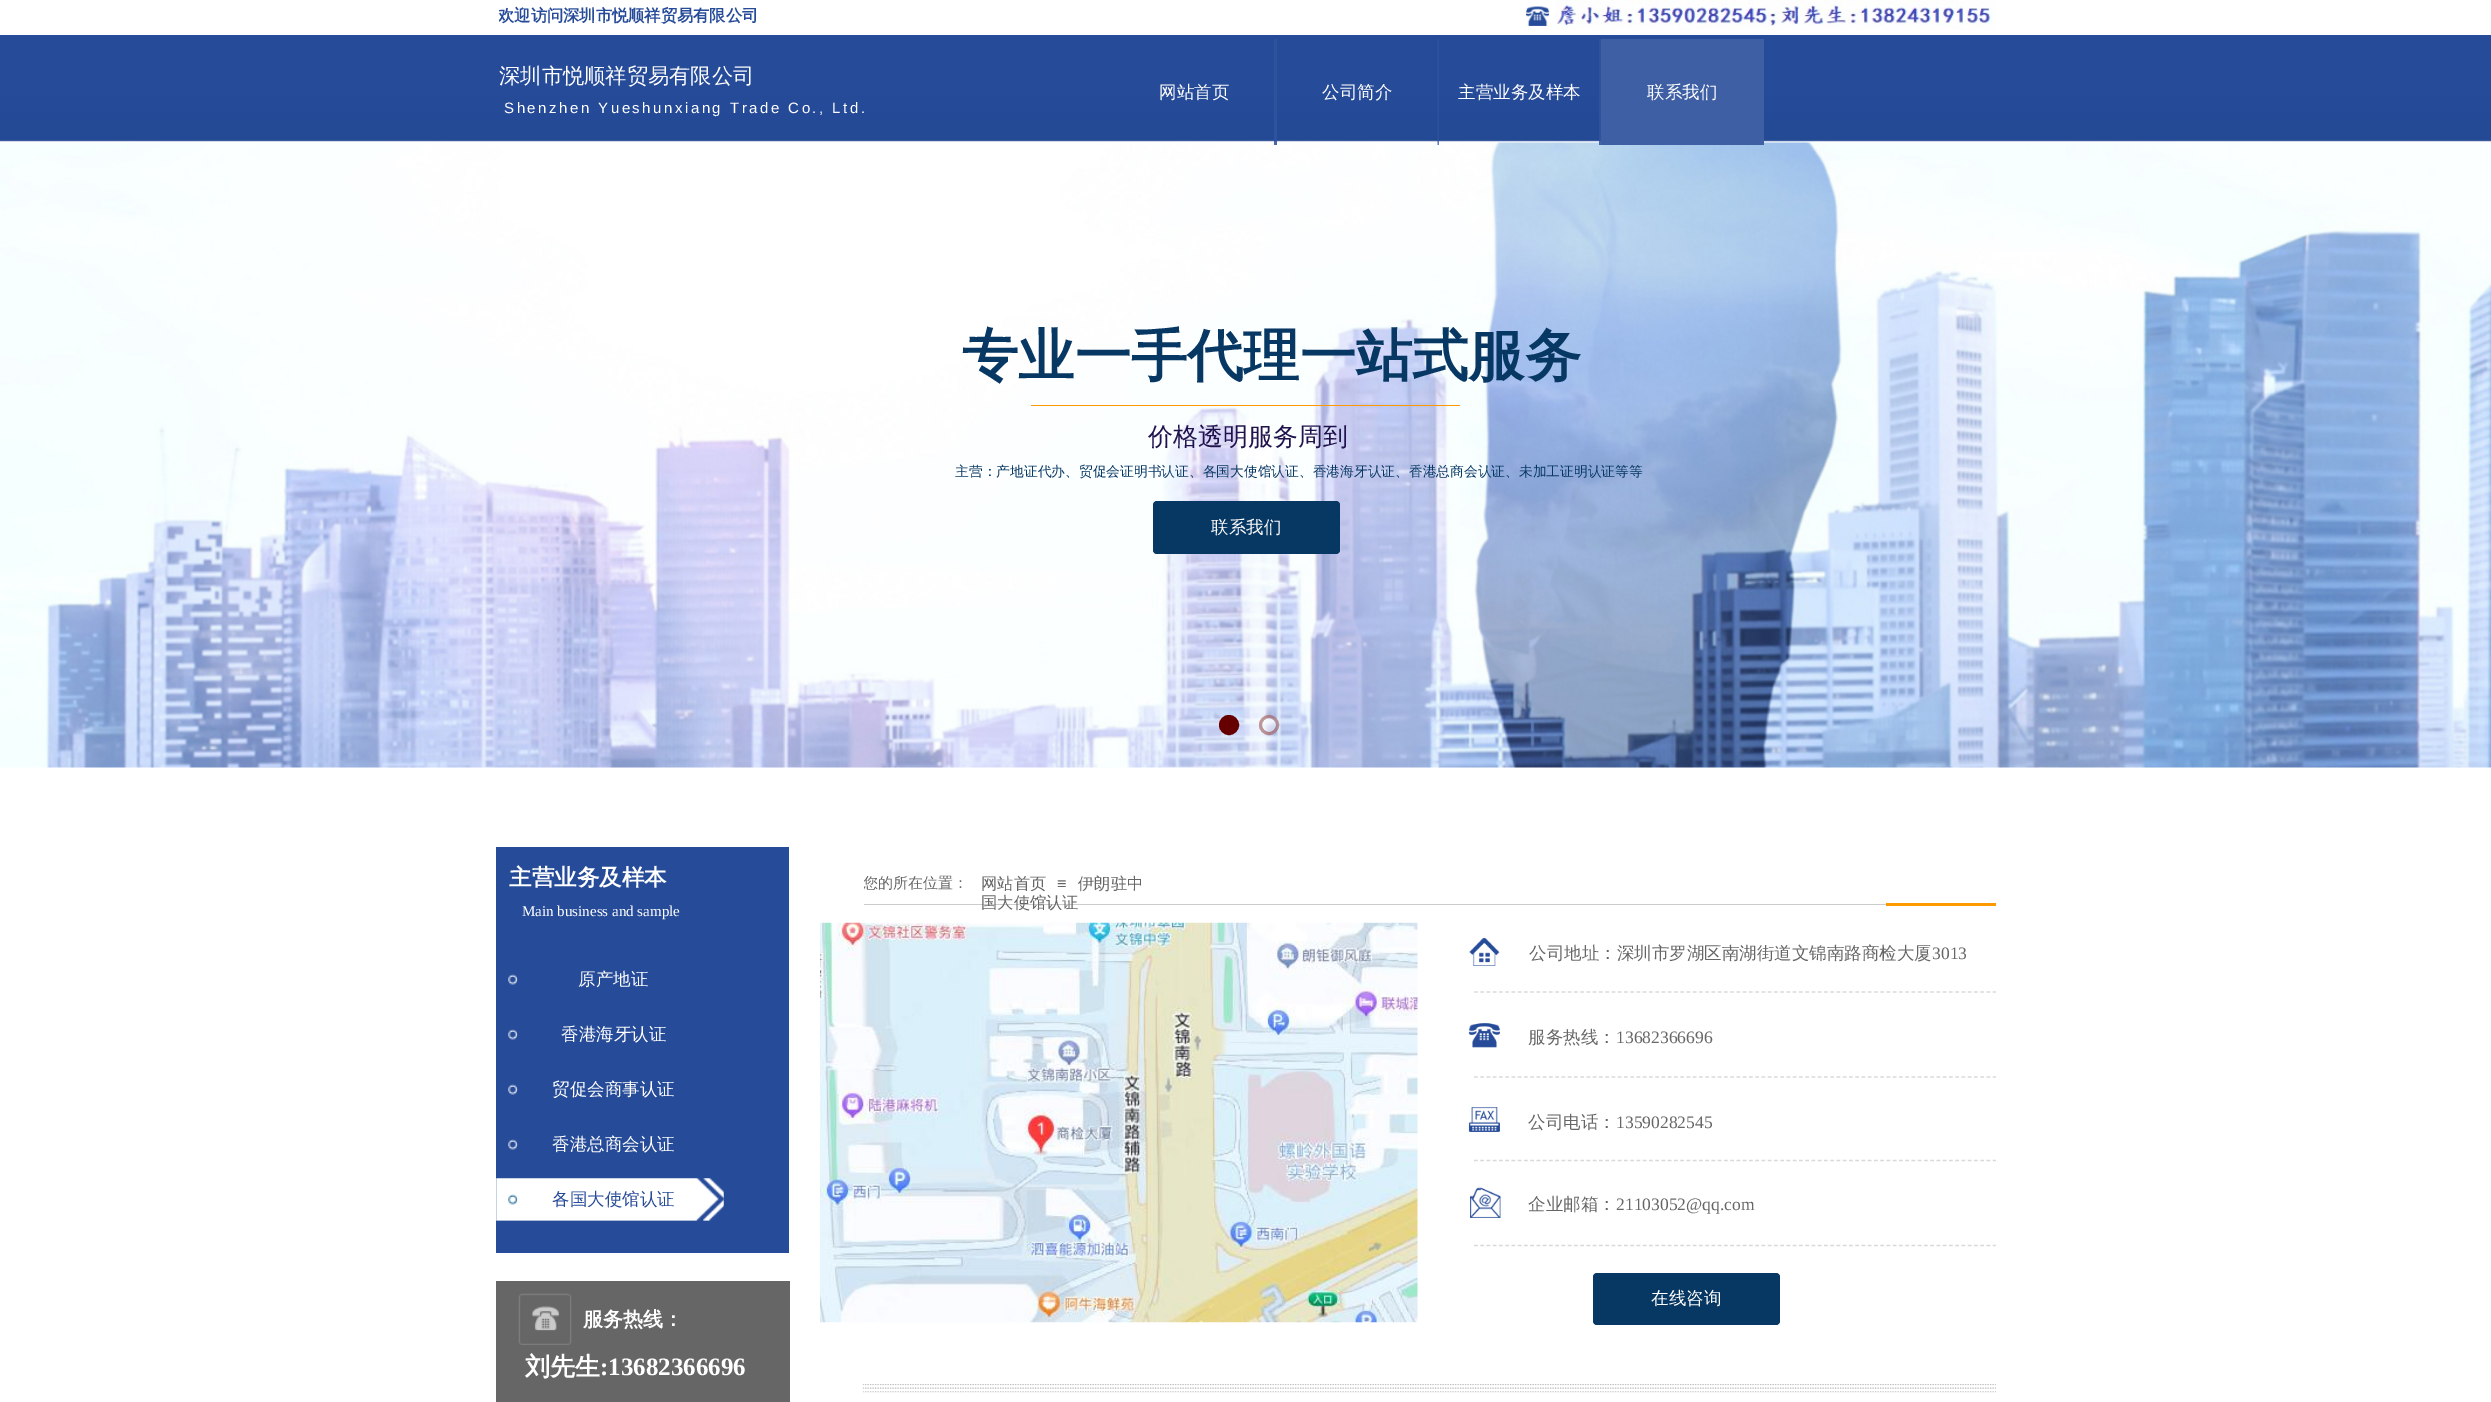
%!PS-Adobe-3.0
%%BoundingBox: 0 0 2491 1402
%%LanguageLevel: 3
%%Pages: 1
%%EndComments
%%BeginProlog
/setink { dup -16 bitshift 255 div exch dup -8 bitshift 255 and 255 div exch 255 and 255 div setrgbcolor } def
/usefont { [ exch dup neg 0 0 3 -1 roll 0 0 ] selectfont } def
/setalpha { dup .setfillconstantalpha .setstrokeconstantalpha } def
/disc { newpath 0 360 arc closepath } def
/rrect { 5 dict begin { /r /h /w /y /x } { exch def } forall
  x r add y moveto x w add y 2 copy h add r arct x w add y h add x 1 index r arct
  x y h add x y r arct x y 2 copy exch w add exch r arct closepath end } def
/drawimage { 5 dict begin { /h /w /y /x /name } { exch def } forall
  gsave x y translate w h scale
  w h 8 [w 0 0 h 0 0] name (r) file false 3 colorimage grestore end } def
%%EndProlog
%%BeginSetup
<< /PageSize [2491 1402] /PageUsesTransparency true >> setpagedevice
%%EndSetup
%%Page: 1 1
0 .pushpdf14devicefilter
0 1402 translate 1 -1 scale
4 setmiterlimit
16#FFFFFF setink
0 0 2491 1402 rectfill
gsave
499 5 315 25 rectclip
/WenQuanYiZenHei-Bold 16.25 usefont
16#264B99 setink
498 21 moveto (欢迎访问深圳市悦顺祥贸易有限公司) show
grestore
(img1.raw) 1526 6 24 20 drawimage
(img2.raw) 1555 0 441 30 drawimage
(img3.raw) 0 35 2491 107 drawimage
/WenQuanYiZenHei-Medium 21.25 usefont
499 83 moveto (深圳市悦顺祥贸易有限公司) show
(img5.raw) 0 142 2491 626 drawimage
0.87 setalpha
16#30539E setink
1274 39 3 106 rectfill
/WenQuanYiZenHei-Medium 17.5 usefont
1 setalpha
16#FFFFFF setink
1159 98 moveto (网站首页) show
(img4.raw) 1437 39 2 106 drawimage
1322 98 moveto (公司简介) show
0.87 setalpha
16#30539E setink
1599 39 2 106 rectfill
1 setalpha
16#FFFFFF setink
1458 98 moveto (主营业务及样本) show
16#3E5FA4 setink
1601 39 163 106 rectfill
16#FFFFFF setink
1647 98 moveto (联系我们) show
/LiberationSans-Regular 15 usefont
504 113 moveto 2.5 0 (Shenzhen Yueshunxiang Trade Co., Ltd.) ashow
16#660000 setink
1229 725 8.5 disc gsave fill grestore
3 setlinewidth
stroke
0.4 setalpha
16#FFFFFF setink
1269 725 10 disc fill
16#660000 setink
1269 725 8.5 disc stroke
/WenQuanYiZenHei-Bold 56.25 usefont
1 setalpha
16#073763 setink
962 375 moveto (专业一手代理一站式服务) show
16#FF9900 setink
1031 405 429 1 rectfill
/WenQuanYiZenHei-Medium 25 usefont
16#20124D setink
1148 445 moveto (价格透明服务周到) show
/WenQuanYiZenHei-Medium 13.75 usefont
16#073763 setink
955 476 moveto (主营：产地证代办、贸促会证明书认证、各国大使馆认证、香港海牙认证、香港总商会认证、未加工证明认证等等) show
1153 501 187 53 4 rrect fill
/WenQuanYiZenHei-Medium 17.5 usefont
16#FFFFFF setink
1211 533 moveto (联系我们) show
16#264B99 setink
496 847 293 406 rectfill
/WenQuanYiZenHei-Bold 22.5 usefont
16#FFFFFF setink
509 885 moveto (主营业务及样本) show
gsave
864 873 187 23 rectclip
/WenQuanYiZenHei-Medium 15 usefont
16#666666 setink
863 888 moveto (您的所在位置：) show
grestore
/WenQuanYiZenHei-Medium 16.25 usefont
16#666666 setink
981 889 moveto (网站首页) show
/LiberationSans-Regular 16.25 usefont
1057 889 moveto (≡) show
/WenQuanYiZenHei-Medium 16.25 usefont
1078 889 moveto (伊朗驻中) show
16#CCCCCC setink
864 904 1022 1 rectfill
16#666666 setink
981 908 moveto (国大使馆认证) show
16#FF9900 setink
1886 903 110 3 rectfill
/LiberationSerif-Regular 15 usefont
16#FFFFFF setink
522 916 moveto (Main business and sample) show
(img6.raw) 820 922 598 401 drawimage
(img7.raw) 1469 937 31 29 drawimage
/WenQuanYiZenHei-Medium 17.5 usefont
16#666666 setink
1529 959 moveto (公司地址：深圳市罗湖区南湖街道文锦南路商检大厦) show
/LiberationSerif-Regular 17.5 usefont
1932 959 moveto (3013) show
(img8.raw) 508 974 11 11 drawimage
/WenQuanYiZenHei-Medium 17.5 usefont
16#FFFFFF setink
578 985 moveto (原产地证) show
(img8.raw) 508 1029 11 11 drawimage
561 1040 moveto (香港海牙认证) show
(img8.raw) 508 1084 11 11 drawimage
552 1095 moveto (贸促会商事认证) show
(img8.raw) 508 1139 11 11 drawimage
552 1150 moveto (香港总商会认证) show
(img9.raw) 496 1178 228 43 drawimage
16#264B99 setink
552 1205 moveto (各国大使馆认证) show
16#D9D9D9 setink
1.2 setlinewidth
[3.75 2.5] 0 setdash
1474 992 moveto 1996 992 lineto stroke
(img10.raw) 1468 1023 32 25 drawimage
16#666666 setink
1528 1043 moveto (服务热线：) show
/LiberationSerif-Regular 17.5 usefont
1616 1043 moveto (13682366696) show
16#D9D9D9 setink
1474 1077 moveto 1996 1077 lineto stroke
(img11.raw) 1468 1107 32 25 drawimage
/WenQuanYiZenHei-Medium 17.5 usefont
16#666666 setink
1528 1128 moveto (公司电话：) show
/LiberationSerif-Regular 17.5 usefont
1616 1128 moveto (13590282545) show
16#D9D9D9 setink
1474 1160.5 moveto 1996 1160.5 lineto stroke
(img12.raw) 1470 1187 31 31 drawimage
/WenQuanYiZenHei-Medium 17.5 usefont
16#666666 setink
1528 1210 moveto (企业邮箱：) show
/LiberationSerif-Regular 17.5 usefont
1616 1210 moveto (21103052@qq.com) show
16#D9D9D9 setink
1474 1245.5 moveto 1996 1245.5 lineto stroke
16#666666 setink
496 1281 294 121 rectfill
16#073763 setink
1593 1273 187 52 4 rrect fill
/WenQuanYiZenHei-Medium 17.5 usefont
16#FFFFFF setink
1651 1304 moveto (在线咨询) show
(img13.raw) 518 1293 54 52 drawimage
/WenQuanYiZenHei-Bold 20 usefont
583 1326 moveto (服务热线：) show
/WenQuanYiZenHei-Bold 25 usefont
525 1375 moveto (刘先生) show
/LiberationSerif-Bold 25 usefont
600 1375 moveto (:13682366696) show
(img14.raw) 862 1384 1134 9 drawimage
.poppdf14devicefilter showpage
%%EOF
